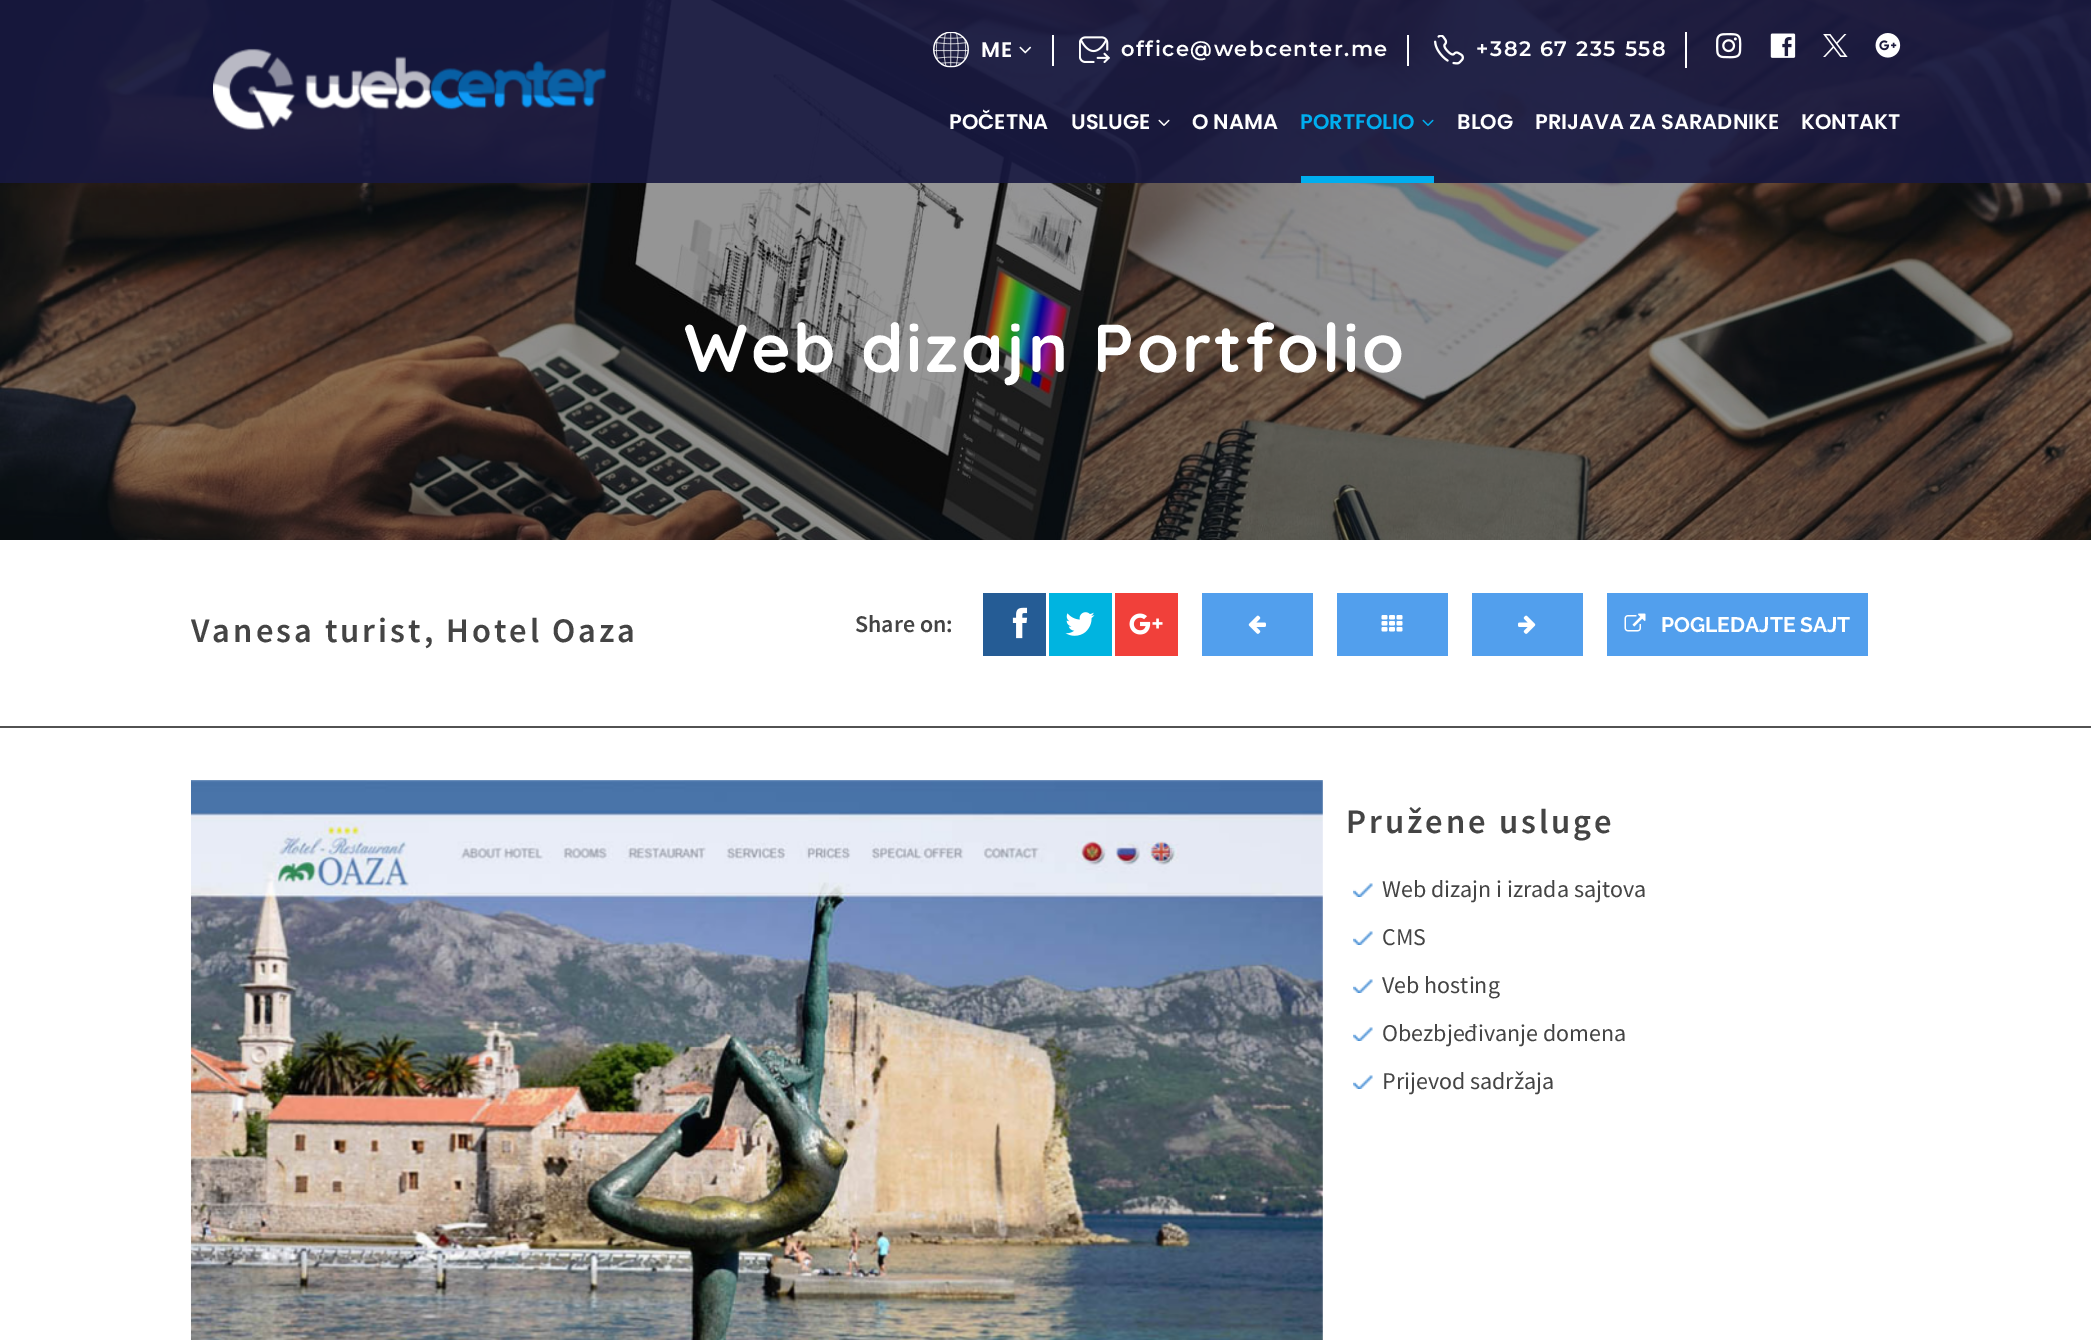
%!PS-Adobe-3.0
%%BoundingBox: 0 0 2091 1340
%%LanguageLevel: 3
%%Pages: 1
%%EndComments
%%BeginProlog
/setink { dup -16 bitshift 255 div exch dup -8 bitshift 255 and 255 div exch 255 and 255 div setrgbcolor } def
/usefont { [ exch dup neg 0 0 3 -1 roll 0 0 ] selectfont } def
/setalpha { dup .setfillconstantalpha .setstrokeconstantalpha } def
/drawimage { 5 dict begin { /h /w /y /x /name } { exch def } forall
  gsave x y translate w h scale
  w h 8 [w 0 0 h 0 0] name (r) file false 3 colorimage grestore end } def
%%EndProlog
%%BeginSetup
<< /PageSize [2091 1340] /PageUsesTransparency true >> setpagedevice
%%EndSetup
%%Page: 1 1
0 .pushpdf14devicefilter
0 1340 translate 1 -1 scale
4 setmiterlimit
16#FFFFFF setink
0 0 2091 1340 rectfill
(img1.raw) 0 0 2091 540 drawimage
0.9 setalpha
16#171840 setink
0 0 2091 183 rectfill
1 setalpha
(img2.raw) 213 48 394 82 drawimage
(img3.raw) 933 32 36 36 drawimage
/Poppins-SemiBold 21 usefont
16#FFFFFF setink
981 57 moveto 1.5 0 (ME) ashow
(img4.raw) 1019 46 13 8 drawimage
(img5.raw) 1079 36 31 27 drawimage
1052 35 2 31 rectfill
/Montserrat-SemiBold 21 usefont
1121 56 moveto 1.5 0 (office@webcenter.me) ashow
(img6.raw) 1434 35 30 30 drawimage
1407 35 2 31 rectfill
1476 56 moveto 1.5 0 (+382 67 235 558) ashow
1685 32 2 36 rectfill
(img7.raw) 1716 33 26 26 drawimage
(img8.raw) 1770 33 26 25 drawimage
(img9.raw) 1823 34 25 23 drawimage
(img10.raw) 1875 33 26 25 drawimage
/Poppins-SemiBold 21 usefont
949 129 moveto (POČETNA) show
(img11.raw) 1158 119 12 7 drawimage
1071 129 moveto (USLUGE) show
1192 129 moveto (O NAMA) show
(img12.raw) 1422 119 12 7 drawimage
16#00AEEF setink
1301 176 133 7 rectfill
1300 129 moveto (PORTFOLIO) show
16#FFFFFF setink
[
    [(BLOG) 1457 129]
    [(PRIJAVA ZA SARADNIKE) 1535 129]
    [(KONTAKT) 1801 129]
] { aload pop moveto show } forall
/Quicksand-Bold 67.5 usefont
684 372 moveto 3 0 (Web dizajn Portfolio) ashow
/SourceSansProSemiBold-SemiBold 34.5 usefont
16#444444 setink
191 642 moveto 3 0 (Vanesa turist, Hotel Oaza) ashow
/SourceSansProSemiBold-SemiBold 24 usefont
855 632 moveto (Share on:) show
16#255C95 setink
983 593 63 63 rectfill
(img13.raw) 1012 607 16 32 drawimage
16#00B4E0 setink
1049 593 63 63 rectfill
(img14.raw) 1065 612 30 24 drawimage
16#F1403A setink
1115 593 63 63 rectfill
(img15.raw) 1129 613 34 22 drawimage
16#529FED setink
1202 593 111 63 rectfill
(img16.raw) 1248 615 18 19 drawimage
1337 593 111 63 rectfill
(img17.raw) 1381 615 22 17 drawimage
1472 593 111 63 rectfill
(img18.raw) 1518 615 18 19 drawimage
1607 593 261 63 rectfill
(img19.raw) 1624 613 22 19 drawimage
/Raleway-Bold 21 usefont
16#FFFFFF setink
1661 632 moveto (POGLEDAJTE SAJT) show
16#525252 setink
0 726 2091 2 rectfill
(img20.raw) 191 780 1132 560 drawimage
/SourceSansProSemiBold-SemiBold 34.5 usefont
16#444444 setink
1346 833 moveto 3 0 (Pružene usluge) ashow
(img21.raw) 1353 883 20 14 drawimage
/SourceSansPro-Regular 24 usefont
1382 897 moveto (Web dizajn i izrada sajtova) show
(img21.raw) 1353 931 20 14 drawimage
1382 945 moveto (CMS) show
(img21.raw) 1353 979 20 14 drawimage
1382 993 moveto (Veb hosting) show
(img21.raw) 1353 1027 20 14 drawimage
1382 1041 moveto (Obezbjeđivanje domena) show
(img21.raw) 1353 1075 20 14 drawimage
1382 1089 moveto (Prijevod sadržaja) show
.poppdf14devicefilter showpage
%%EOF
